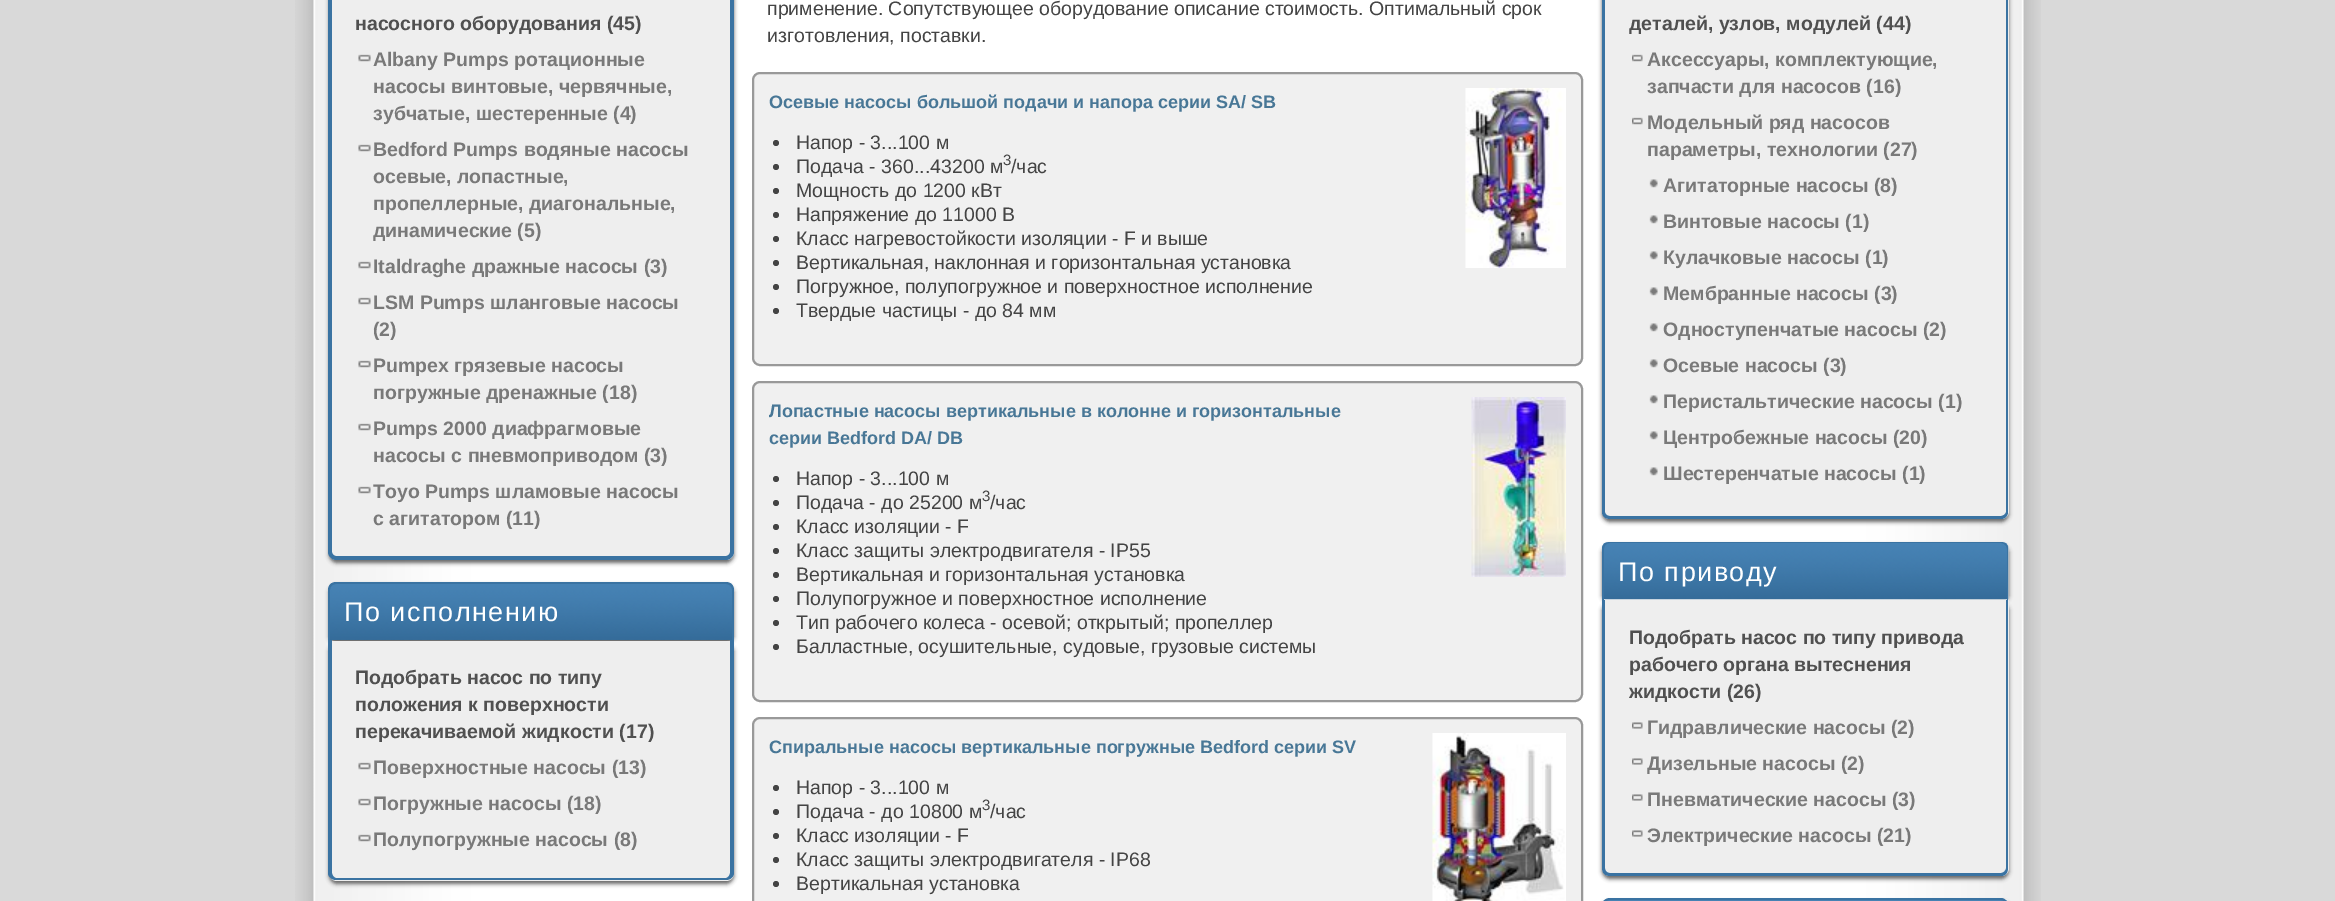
%!PS-Adobe-3.0
%%BoundingBox: 0 0 2335 901
%%LanguageLevel: 3
%%Pages: 1
%%EndComments
%%BeginProlog
/setink { dup -16 bitshift 255 div exch dup -8 bitshift 255 and 255 div exch 255 and 255 div setrgbcolor } def
/usefont { [ exch dup neg 0 0 3 -1 roll 0 0 ] selectfont } def
/setalpha { dup .setfillconstantalpha .setstrokeconstantalpha } def
/disc { newpath 0 360 arc closepath } def
/rrect { 5 dict begin { /r /h /w /y /x } { exch def } forall
  x r add y moveto x w add y 2 copy h add r arct x w add y h add x 1 index r arct
  x y h add x y r arct x y 2 copy exch w add exch r arct closepath end } def
/softshadow { 12 dict begin { /a /b /q /h /w /y /x } { exch def } forall gsave /was 0 def
  9 -2 -9 { dup b mul 4 div /e exch def 1 sub .425 mul 2.718 exch exp 1 add a .99 .min exch div /now exch def
    1 1 now sub 1 was sub div sub setalpha /was now def
    w h .min e 2 mul add 0 gt { x e sub y e sub w e 2 mul add h e 2 mul add
      q e add b .6 mul add w h .min 2 div e add .min 0 .max rrect fill } if } for grestore end } def
/drawimage { 5 dict begin { /h /w /y /x /name } { exch def } forall
  gsave x y translate w h scale
  w h 8 [w 0 0 h 0 0] name (r) file false 3 colorimage grestore end } def
%%EndProlog
%%BeginSetup
<< /PageSize [2335 901] /PageUsesTransparency true >> setpagedevice
%%EndSetup
%%Page: 1 1
0 .pushpdf14devicefilter
0 901 translate 1 -1 scale
4 setmiterlimit
16#D9D9D9 setink
0 0 2335 901 rectfill
(img1.raw) 295 0 1746 901 drawimage
16#666666 setink
329 -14 405 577 8 2 1 softshadow
16#EEEEEE setink
329 -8 moveto 734 -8 lineto 734 552 lineto 734 556.5 730.5 560 726 560 curveto 337 560 lineto 332.5 560 329 556.5 329 552 curveto closepath fill
16#3A73A2 setink
328 -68 moveto 734 -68 lineto 734 552 lineto 734 556 730 560 726 560 curveto 336 560 lineto 332 560 328 556 328 552 curveto closepath 332 -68 moveto 730 -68 lineto 730 552 lineto 730 554 728 556 726 556 curveto 336 556 lineto 334 556 332 554 332 552 curveto closepath eofill
/LiberationSans-Bold 19.5 usefont
16#505050 setink
355 30 moveto (насосного оборудования \(45\)) show
(img2.raw) 358 54 13 8 drawimage
16#797979 setink
[
    [(Albany Pumps ротационные) 373 66]
    [(насосы винтовые, червячные,) 373 93]
    [(зубчатые, шестеренные \(4\)) 373 120]
] { aload pop moveto show } forall
(img2.raw) 358 144 13 8 drawimage
[
    [(Bedford Pumps водяные насосы) 373 156]
    [(осевые, лопастные,) 373 183]
    [(пропеллерные, диагональные,) 373 210]
    [(динамические \(5\)) 373 237]
] { aload pop moveto show } forall
(img2.raw) 358 261 13 8 drawimage
373 273 moveto (Italdraghe дражные насосы \(3\)) show
(img2.raw) 358 297 13 8 drawimage
373 309 moveto (LSM Pumps шланговые насосы) show
373 336 moveto (\(2\)) show
(img2.raw) 358 360 13 8 drawimage
373 372 moveto (Pumpex грязевые насосы) show
373 399 moveto (погружные дренажные \(18\)) show
(img2.raw) 358 423 13 8 drawimage
373 435 moveto (Pumps 2000 диафрагмовые) show
373 462 moveto (насосы с пневмоприводом \(3\)) show
(img2.raw) 358 486 13 8 drawimage
373 498 moveto (Toyo Pumps шламовые насосы) show
373 525 moveto (с агитатором \(11\)) show
16#666666 setink
329 585 405 59 8 2 1 softshadow
(img3.raw) 328 583 406 57 drawimage
16#3A73A2 setink
336 582 moveto 726 582 lineto 730 582 734 585 734 590 curveto 734 640 lineto 328 640 lineto 328 590 lineto 328 585 332 582 336 582 curveto closepath 336 584 moveto 726 584 lineto 729 584 732 586 732 590 curveto 732 640 lineto 330 640 lineto 330 590 lineto 330 586 333 584 336 584 curveto closepath eofill
/LiberationSans-Regular 27 usefont
16#FFFFFF setink
344 621 moveto 1.5 0 (По исполнению) ashow
16#666666 setink
329 644 405 240 8 2 1 softshadow
16#EEEEEE setink
329 641 moveto 734 641 lineto 734 873 lineto 734 877.5 730.5 881 726 881 curveto 337 881 lineto 332.5 881 329 877.5 329 873 curveto closepath fill
16#3A73A2 setink
328 640 moveto 734 640 lineto 734 873 lineto 734 877 730 880 726 880 curveto 336 880 lineto 332 880 328 877 328 873 curveto closepath 332 640 moveto 730 640 lineto 730 873 lineto 730 875 728 878 726 878 curveto 336 878 lineto 334 878 332 875 332 873 curveto closepath eofill
/LiberationSans-Bold 19.5 usefont
16#505050 setink
[
    [(Подобрать насос по типу) 355 684]
    [(положения к поверхности) 355 711]
    [(перекачиваемой жидкости \(17\)) 355 738]
] { aload pop moveto show } forall
(img2.raw) 358 762 13 8 drawimage
16#797979 setink
373 774 moveto (Поверхностные насосы \(13\)) show
(img2.raw) 358 798 13 8 drawimage
373 810 moveto (Погружные насосы \(18\)) show
(img2.raw) 358 834 13 8 drawimage
373 846 moveto (Полупогружные насосы \(8\)) show
/LiberationSans-Regular 19.5 usefont
16#444444 setink
767 15 moveto (применение. Сопутствующее оборудование описание стоимость. Оптимальный срок) show
767 42 moveto (изготовления, поставки.) show
16#F0F0F0 setink
753 73 829 292 7 rrect gsave fill grestore
16#999999 setink
2 setlinewidth
stroke
/LiberationSans-Bold 18 usefont
16#487796 setink
769 108 moveto (Осевые насосы большой подачи и напора серии SA/ SB) show
16#444444 setink
776 143 3 disc fill
/LiberationSans-Regular 19.5 usefont
796 149 moveto (Напор - 3...100 м) show
776 167 3 disc fill
796 173 moveto (Подача - 360...43200 м) show
1011 173 moveto (/час) show
/LiberationSans-Regular 15 usefont
1003 165 moveto (3) show
776 191 3 disc fill
/LiberationSans-Regular 19.5 usefont
796 197 moveto (Мощность до 1200 кВт) show
776 215 3 disc fill
796 221 moveto (Напряжение до 11000 В) show
776 239 3 disc fill
796 245 moveto (Класс нагревостойкости изоляции - F и выше) show
776 263 3 disc fill
796 269 moveto (Вертикальная, наклонная и горизонтальная установка) show
776 287 3 disc fill
796 293 moveto (Погружное, полупогружное и поверхностное исполнение) show
776 311 3 disc fill
796 317 moveto (Твердые частицы - до 84 мм) show
(img4.raw) 1465 88 101 180 drawimage
16#F0F0F0 setink
753 382 829 319 7 rrect gsave fill grestore
16#999999 setink
stroke
/LiberationSans-Bold 18 usefont
16#487796 setink
769 417 moveto (Лопастные насосы вертикальные в колонне и горизонтальные) show
769 444 moveto (серии Bedford DA/ DB) show
16#444444 setink
776 479 3 disc fill
/LiberationSans-Regular 19.5 usefont
796 485 moveto (Напор - 3...100 м) show
776 503 3 disc fill
796 509 moveto (Подача - до 25200 м) show
990 509 moveto (/час) show
/LiberationSans-Regular 15 usefont
982 501 moveto (3) show
776 527 3 disc fill
/LiberationSans-Regular 19.5 usefont
796 533 moveto (Класс изоляции - F) show
776 551 3 disc fill
796 557 moveto (Класс защиты электродвигателя - IP55) show
776 575 3 disc fill
796 581 moveto (Вертикальная и горизонтальная установка) show
776 599 3 disc fill
796 605 moveto (Полупогружное и поверхностное исполнение) show
776 623 3 disc fill
796 629 moveto (Тип рабочего колеса - осевой; открытый; пропеллер) show
776 647 3 disc fill
796 653 moveto (Балластные, осушительные, судовые, грузовые системы) show
(img5.raw) 1471 397 95 180 drawimage
16#F0F0F0 setink
753 718 829 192 7 rrect gsave fill grestore
16#999999 setink
stroke
/LiberationSans-Bold 18 usefont
16#487796 setink
769 753 moveto (Спиральные насосы вертикальные погружные Bedford серии SV) show
16#444444 setink
776 788 3 disc fill
/LiberationSans-Regular 19.5 usefont
796 794 moveto (Напор - 3...100 м) show
776 812 3 disc fill
796 818 moveto (Подача - до 10800 м) show
990 818 moveto (/час) show
/LiberationSans-Regular 15 usefont
982 810 moveto (3) show
776 836 3 disc fill
/LiberationSans-Regular 19.5 usefont
796 842 moveto (Класс изоляции - F) show
776 860 3 disc fill
796 866 moveto (Класс защиты электродвигателя - IP68) show
776 884 3 disc fill
796 890 moveto (Вертикальная установка) show
(img6.raw) 1432 733 134 168 drawimage
16#666666 setink
1602 -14 407 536 8 2 1 softshadow
16#EEEEEE setink
1602 -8 moveto 2009 -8 lineto 2009 511 lineto 2009 515.5 2005.5 519 2001 519 curveto 1610 519 lineto 1605.5 519 1602 515.5 1602 511 curveto closepath fill
16#3A73A2 setink
1602 -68 moveto 2008 -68 lineto 2008 512 lineto 2008 516 2005 519 2001 519 curveto 1610 519 lineto 1605 519 1602 516 1602 512 curveto closepath 1605 -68 moveto 2006 -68 lineto 2006 512 lineto 2006 514 2003 516 2001 516 curveto 1610 516 lineto 1607 516 1605 514 1605 512 curveto closepath eofill
/LiberationSans-Bold 19.5 usefont
16#505050 setink
1629 30 moveto (деталей, узлов, модулей \(44\)) show
(img7.raw) 1632 54 11 8 drawimage
16#797979 setink
1647 66 moveto (Аксессуары, комплектующие,) show
1647 93 moveto (запчасти для насосов \(16\)) show
(img7.raw) 1632 117 11 8 drawimage
1647 129 moveto (Модельный ряд насосов) show
1647 156 moveto (параметры, технологии \(27\)) show
(img8.raw) 1649 179 9 9 drawimage
1663 192 moveto (Агитаторные насосы \(8\)) show
(img8.raw) 1649 215 9 9 drawimage
1663 228 moveto (Винтовые насосы \(1\)) show
(img8.raw) 1649 251 9 9 drawimage
1663 264 moveto (Кулачковые насосы \(1\)) show
(img8.raw) 1649 287 9 9 drawimage
1663 300 moveto (Мембранные насосы \(3\)) show
(img8.raw) 1649 323 9 9 drawimage
1663 336 moveto (Одноступенчатые насосы \(2\)) show
(img8.raw) 1649 359 9 9 drawimage
1663 372 moveto (Осевые насосы \(3\)) show
(img8.raw) 1649 395 9 9 drawimage
1663 408 moveto (Перистальтические насосы \(1\)) show
(img8.raw) 1649 431 9 9 drawimage
1663 444 moveto (Центробежные насосы \(20\)) show
(img8.raw) 1649 467 9 9 drawimage
1663 480 moveto (Шестеренчатые насосы \(1\)) show
16#666666 setink
1602 545 407 58 8 2 1 softshadow
(img9.raw) 1602 542 407 58 drawimage
16#3A73A2 setink
1610 542 moveto 2001 542 lineto 2005 542 2008 545 2008 549 curveto 2008 600 lineto 1602 600 lineto 1602 549 lineto 1602 545 1605 542 1610 542 curveto closepath 1610 543 moveto 2001 543 lineto 2004 543 2007 546 2007 549 curveto 2007 600 lineto 1604 600 lineto 1604 549 lineto 1604 546 1606 543 1610 543 curveto closepath eofill
/LiberationSans-Regular 27 usefont
16#FFFFFF setink
1618 581 moveto 1.5 0 (По приводу) ashow
16#666666 setink
1602 603 407 276 8 2 1 softshadow
16#EEEEEE setink
1602 600 moveto 2009 600 lineto 2009 868 lineto 2009 872.5 2005.5 876 2001 876 curveto 1610 876 lineto 1605.5 876 1602 872.5 1602 868 curveto closepath fill
16#3A73A2 setink
1602 600 moveto 2008 600 lineto 2008 868 lineto 2008 873 2005 876 2001 876 curveto 1610 876 lineto 1605 876 1602 873 1602 868 curveto closepath 1605 600 moveto 2006 600 lineto 2006 868 lineto 2006 871 2003 873 2001 873 curveto 1610 873 lineto 1607 873 1605 871 1605 868 curveto closepath eofill
/LiberationSans-Bold 19.5 usefont
16#505050 setink
[
    [(Подобрать насос по типу привода) 1629 644]
    [(рабочего органа вытеснения) 1629 671]
    [(жидкости \(26\)) 1629 698]
] { aload pop moveto show } forall
(img10.raw) 1632 722 11 7 drawimage
16#797979 setink
1647 734 moveto (Гидравлические насосы \(2\)) show
(img10.raw) 1632 758 11 7 drawimage
1647 770 moveto (Дизельные насосы \(2\)) show
(img10.raw) 1632 794 11 7 drawimage
1647 806 moveto (Пневматические насосы \(3\)) show
(img10.raw) 1632 830 11 7 drawimage
1647 842 moveto (Электрические насосы \(21\)) show
16#666666 setink
1602 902 407 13 8 2 1 softshadow
(img11.raw) 1603 899 405 2 drawimage
16#3A73A2 setink
1610 898 moveto 2001 898 lineto 2005 898 2008 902 2008 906 curveto 2008 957 lineto 1602 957 lineto 1602 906 lineto 1602 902 1605 898 1610 898 curveto closepath 1610 900 moveto 2001 900 lineto 2004 900 2007 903 2007 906 curveto 2007 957 lineto 1604 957 lineto 1604 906 lineto 1604 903 1606 900 1610 900 curveto closepath eofill
.poppdf14devicefilter showpage
%%EOF
